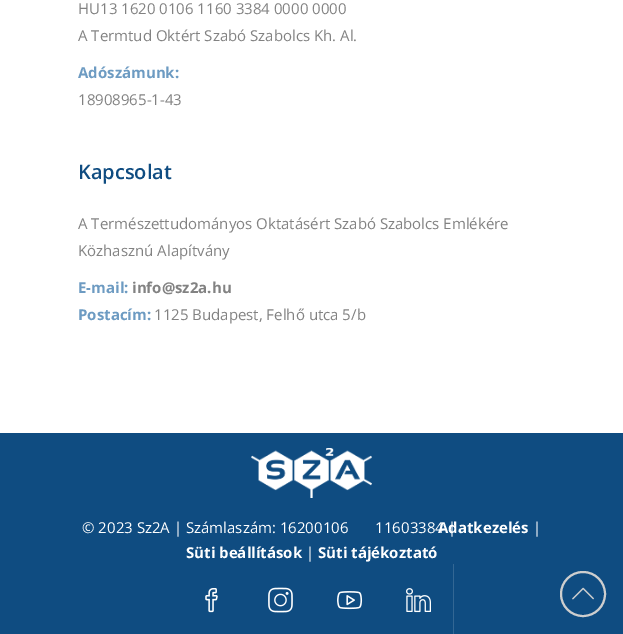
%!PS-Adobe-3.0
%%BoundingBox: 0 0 623 634
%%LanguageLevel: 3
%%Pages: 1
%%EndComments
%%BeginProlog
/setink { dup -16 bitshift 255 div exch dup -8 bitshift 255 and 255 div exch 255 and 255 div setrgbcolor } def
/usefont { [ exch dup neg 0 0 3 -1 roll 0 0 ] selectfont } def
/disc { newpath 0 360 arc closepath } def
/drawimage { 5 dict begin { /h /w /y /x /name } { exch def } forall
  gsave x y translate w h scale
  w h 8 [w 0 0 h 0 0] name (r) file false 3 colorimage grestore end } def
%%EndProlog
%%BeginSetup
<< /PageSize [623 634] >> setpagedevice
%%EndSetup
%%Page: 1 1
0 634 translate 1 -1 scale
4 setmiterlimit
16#FFFFFF setink
0 0 623 634 rectfill
/OpenSans-Regular 15 usefont
16#828282 setink
78 14 moveto (HU13 1620 0106 1160 3384 0000 0000) show
78 41 moveto (A Termtud Oktért Szabó Szabolcs Kh. Al.) show
/OpenSans-Bold 15 usefont
16#6D9BC2 setink
78 78 moveto (Adószámunk:) show
/OpenSans-Regular 15 usefont
16#828282 setink
78 105 moveto (18908965-1-43) show
/OpenSans-SemiBold 20 usefont
16#0F4C81 setink
78 179 moveto (Kapcsolat) show
/OpenSans-Regular 15 usefont
16#828282 setink
78 229 moveto (A Természettudományos Oktatásért Szabó Szabolcs Emlékére) show
78 256 moveto (Közhasznú Alapítvány) show
/OpenSans-Bold 15 usefont
16#6D9BC2 setink
78 293 moveto (E-mail:) show
16#828282 setink
132 293 moveto (info@sz2a.hu) show
16#6D9BC2 setink
78 320 moveto (Postacím:) show
/OpenSans-Regular 15 usefont
16#828282 setink
154 320 moveto (1125 Budapest, Felhő utca 5/b) show
16#0F4C81 setink
0 433 623 201 rectfill
(img1.raw) 251 448 121 50 drawimage
16#FFFFFF setink
82 533 moveto (© 2023 Sz2A | Számlaszám: 16200106‑11603384 |) show
/OpenSans-Bold 15 usefont
438 533 moveto (Adatkezelés) show
/OpenSans-Regular 15 usefont
533 533 moveto (|) show
/OpenSans-Bold 15 usefont
186 558 moveto (Süti beállítások) show
/OpenSans-Regular 15 usefont
306 558 moveto (|) show
/OpenSans-Bold 15 usefont
318 558 moveto (Süti tájékoztató) show
(img2.raw) 205 588 13 25 drawimage
(img3.raw) 268 587 25 26 drawimage
(img4.raw) 337 591 26 19 drawimage
16#336794 setink
453 564 1 70 rectfill
(img5.raw) 406 588 25 25 drawimage
16#CECECE setink
2 setlinewidth
583 594 22 disc stroke
(img6.raw) 572 587 22 13 drawimage
showpage
%%EOF
